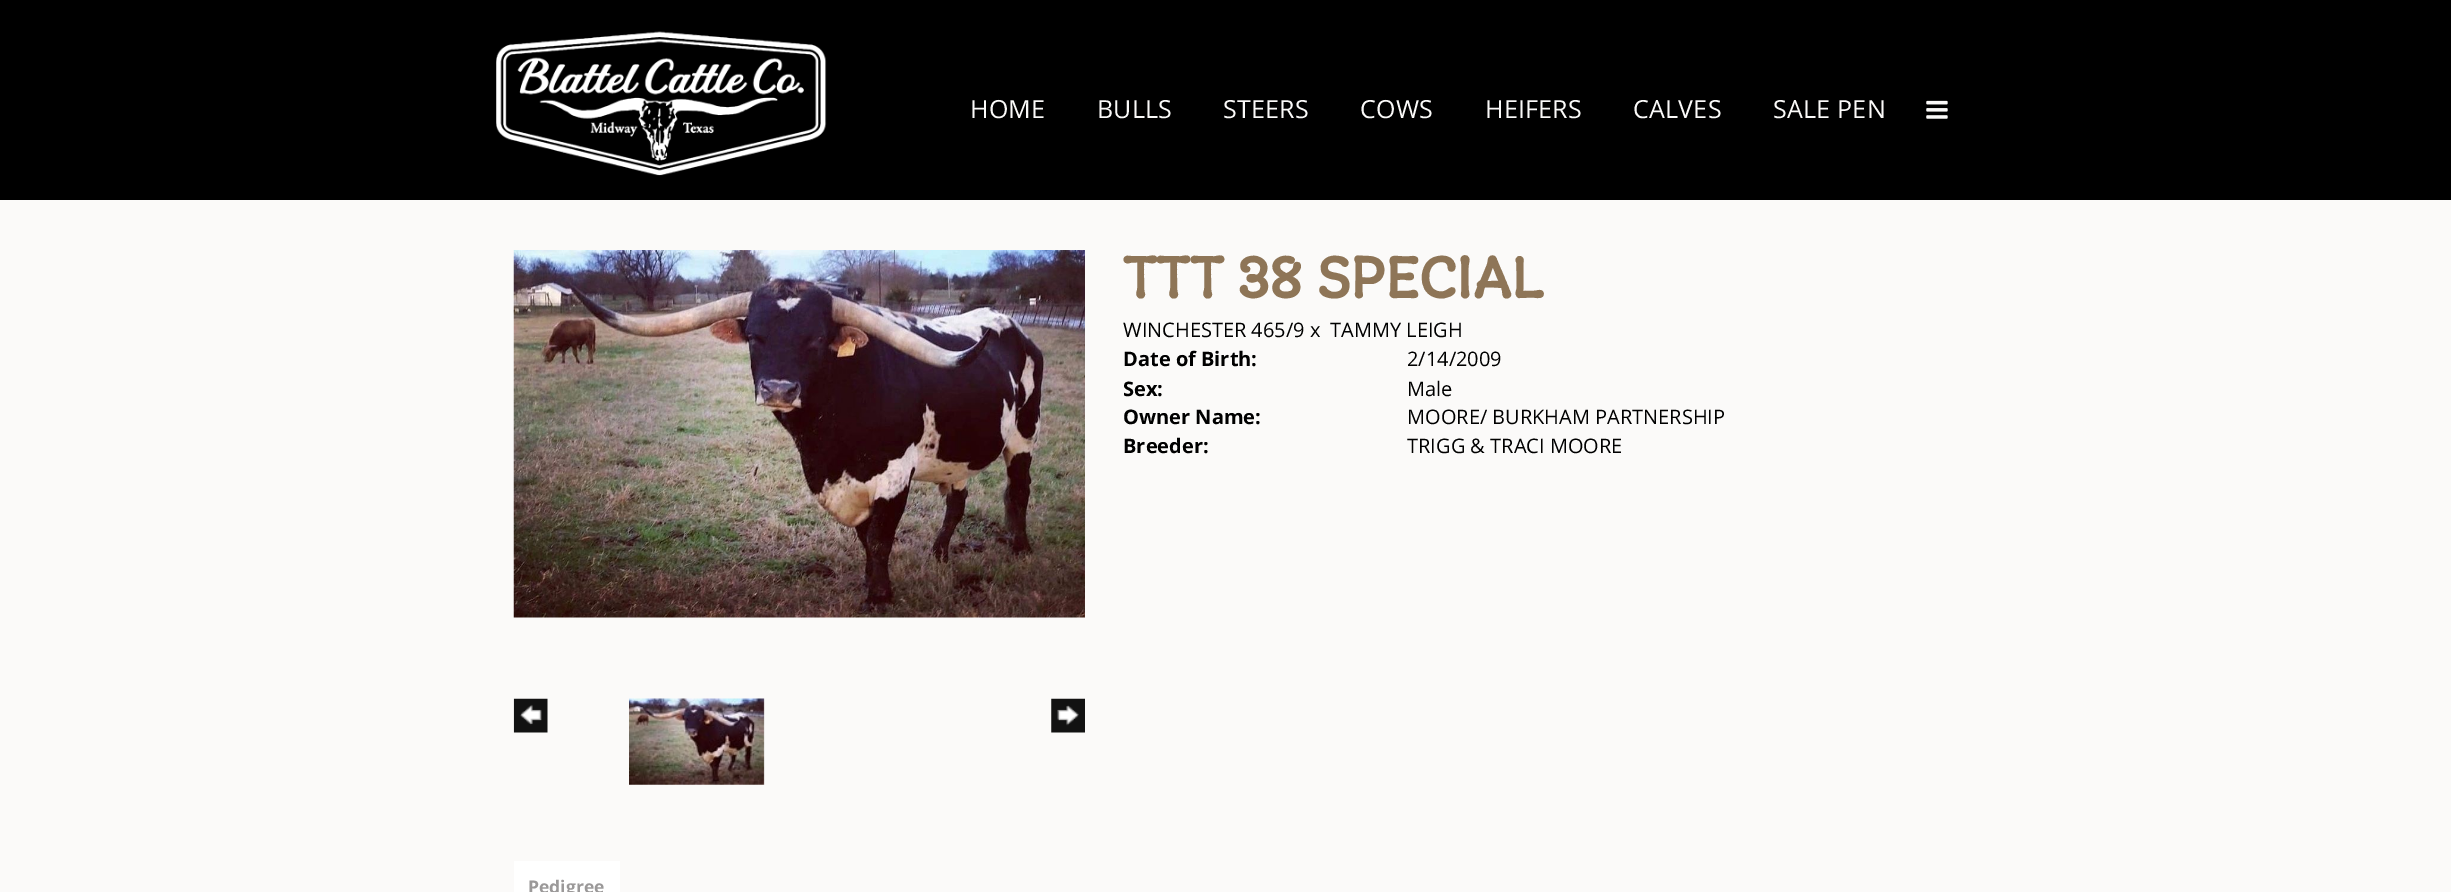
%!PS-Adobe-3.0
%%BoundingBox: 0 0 2451 892
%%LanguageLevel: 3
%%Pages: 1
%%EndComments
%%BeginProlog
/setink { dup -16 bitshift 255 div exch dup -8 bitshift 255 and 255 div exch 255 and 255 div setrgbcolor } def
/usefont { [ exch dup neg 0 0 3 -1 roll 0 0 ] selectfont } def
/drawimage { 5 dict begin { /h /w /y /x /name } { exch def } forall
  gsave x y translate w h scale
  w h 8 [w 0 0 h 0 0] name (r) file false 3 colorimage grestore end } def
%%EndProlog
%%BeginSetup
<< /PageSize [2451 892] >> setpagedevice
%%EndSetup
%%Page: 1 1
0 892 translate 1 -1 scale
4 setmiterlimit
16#FBFAF9 setink
0 0 2451 892 rectfill
16#000000 setink
0 0 2451 200 rectfill
(img1.raw) 496 31 331 145 drawimage
/OpenSans-Regular 25 usefont
16#FBFAF9 setink
970 118 moveto 0.25 0 (HOME) ashow
1097 118 moveto 0.25 0 (BULLS) ashow
1223 118 moveto 0.25 0 (STEERS) ashow
1360 118 moveto 0.25 0 (COWS) ashow
1485 118 moveto 0.25 0 (HEIFERS) ashow
1633 118 moveto 0.25 0 (CALVES) ashow
1773 118 moveto 0.25 0 (SALE PEN) ashow
(img2.raw) 1926 100 22 19 drawimage
(img3.raw) 513 250 572 368 drawimage
(img4.raw) 513 698 35 35 drawimage
(img5.raw) 629 698 136 87 drawimage
(img6.raw) 1051 698 34 35 drawimage
/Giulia-Bold 60 usefont
16#8E7557 setink
1123 298 moveto (TTT 38 SPECIAL) show
/OpenSans-Regular 20 usefont
16#000000 setink
1123 337 moveto (WINCHESTER 465/9 x) show
1330 337 moveto (TAMMY LEIGH) show
/OpenSans-Bold 20 usefont
1123 366 moveto (Date of Birth:) show
/OpenSans-Regular 20 usefont
1407 366 moveto (2/14/2009) show
/OpenSans-Bold 20 usefont
1123 396 moveto (Sex:) show
/OpenSans-Regular 20 usefont
1407 396 moveto (Male) show
/OpenSans-Bold 20 usefont
1123 424 moveto (Owner Name:) show
/OpenSans-Regular 20 usefont
1407 424 moveto (MOORE/ BURKHAM PARTNERSHIP) show
/OpenSans-Bold 20 usefont
1123 453 moveto (Breeder:) show
/OpenSans-Regular 20 usefont
1407 453 moveto (TRIGG & TRACI MOORE) show
16#FFFFFF setink
514 861 106 31 rectfill
/OpenSans-Bold 17.5 usefont
16#9B9999 setink
528 893 moveto (Pedigree) show
showpage
%%EOF
